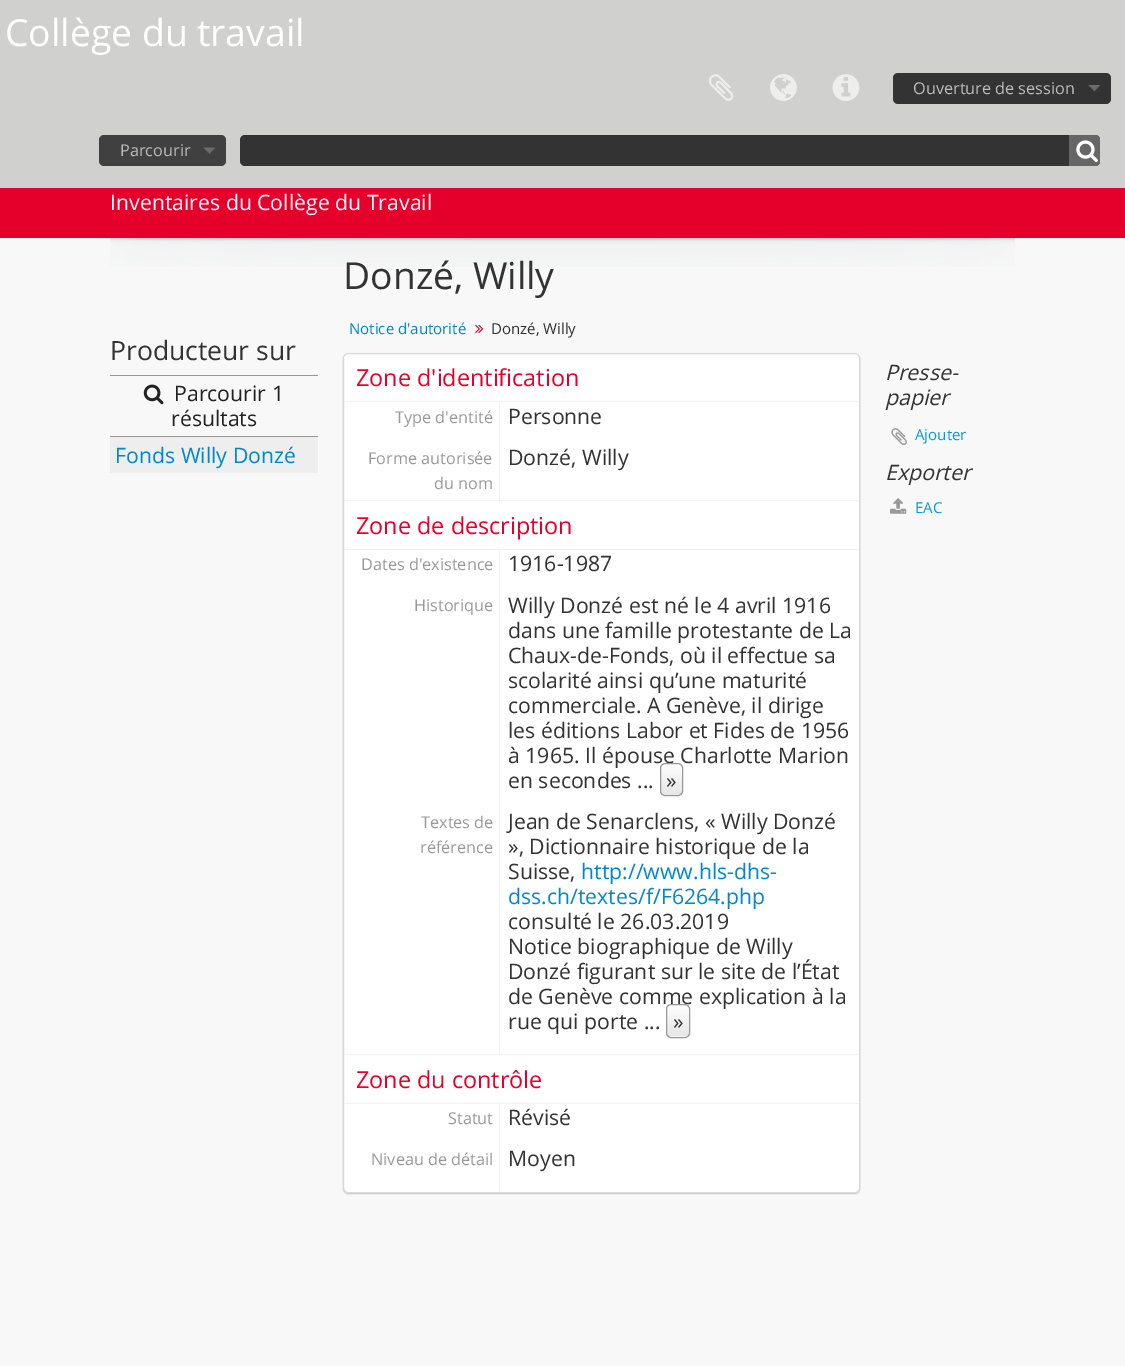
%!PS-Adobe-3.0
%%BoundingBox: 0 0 1125 1366
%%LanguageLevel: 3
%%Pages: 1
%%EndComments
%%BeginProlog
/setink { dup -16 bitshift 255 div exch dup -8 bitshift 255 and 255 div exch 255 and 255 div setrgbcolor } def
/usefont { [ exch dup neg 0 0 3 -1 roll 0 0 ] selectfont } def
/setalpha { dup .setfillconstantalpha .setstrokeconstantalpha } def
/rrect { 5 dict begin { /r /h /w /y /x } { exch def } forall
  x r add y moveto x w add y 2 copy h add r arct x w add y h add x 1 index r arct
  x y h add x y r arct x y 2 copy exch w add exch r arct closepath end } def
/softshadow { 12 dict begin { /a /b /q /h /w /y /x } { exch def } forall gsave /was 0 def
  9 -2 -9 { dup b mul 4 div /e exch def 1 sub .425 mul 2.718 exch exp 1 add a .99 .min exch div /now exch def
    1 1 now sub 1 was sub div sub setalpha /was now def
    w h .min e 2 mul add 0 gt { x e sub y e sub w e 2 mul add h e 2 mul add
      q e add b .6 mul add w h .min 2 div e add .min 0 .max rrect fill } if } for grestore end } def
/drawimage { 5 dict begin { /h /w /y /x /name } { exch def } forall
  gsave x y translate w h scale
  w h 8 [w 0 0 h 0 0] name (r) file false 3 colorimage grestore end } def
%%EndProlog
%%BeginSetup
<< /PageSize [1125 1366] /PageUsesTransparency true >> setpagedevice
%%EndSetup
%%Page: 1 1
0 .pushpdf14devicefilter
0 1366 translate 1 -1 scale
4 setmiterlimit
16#F8F8F8 setink
0 0 1125 1366 rectfill
16#D0D0CE setink
0 0 1125 188 rectfill
/OpenSans-Regular 37.25 usefont
16#FFFFFF setink
5 46 moveto (Collège du travail) show
(img1.raw) 708 74 26 27 drawimage
(img2.raw) 770 74 27 27 drawimage
(img3.raw) 832 74 28 27 drawimage
16#333333 setink
893 73 218 31 5 rrect fill
(img4.raw) 1088 85 13 7 drawimage
/OpenSans-Regular 16.25 usefont
16#BBBBBB setink
913 94 moveto (Ouverture de session) show
16#404040 setink
99 135 127 31 5 rrect fill
(img5.raw) 203 147 13 7 drawimage
16#BBBBBB setink
120 156 moveto (Parcourir) show
16#333333 setink
240 135 860 31 5 rrect fill
0.07 setalpha
16#000000 setink
245 136 moveto 1095 136 lineto 1098 136 1100 138 1100 141 curveto 1100 140 lineto 1100 137 1098 135 1095 135 curveto 245 135 lineto 242 135 240 137 240 140 curveto 240 141 lineto 240 138 242 136 245 136 curveto closepath fill
1 setalpha
16#666666 setink
1069 135 moveto 1095 135 lineto 1098 135 1100 137 1100 140 curveto 1100 161 lineto 1100 164 1098 166 1095 166 curveto 1069 166 lineto closepath fill
(img6.raw) 1076 140 22 23 drawimage
16#E4002B setink
0 188 1125 50 rectfill
/OpenSans-Regular 21.25 usefont
16#FFFFFF setink
110 210 moveto (Inventaires du Collège du Travail) show
(img7.raw) 110 238 905 29 drawimage
/OpenSans-Regular 26.5 usefont
16#333333 setink
110 360 moveto (Producteur sur) show
16#999999 setink
110 375 208 1 rectfill
(img8.raw) 143 384 21 21 drawimage
/OpenSans-Regular 21.25 usefont
16#222222 setink
174 401 moveto (Parcourir 1) show
171 426 moveto (résultats) show
16#EEEEEE setink
110 437 208 36 rectfill
16#999999 setink
110 436 208 1 rectfill
16#0088CC setink
115 463 moveto (Fonds Willy Donzé) show
/OpenSans-Regular 37.25 usefont
16#333333 setink
343 289 moveto (Donzé, Willy) show
/OpenSans-Regular 15 usefont
16#0088CC setink
349 334 moveto (Notice d'autorité) show
(img9.raw) 475 324 9 10 drawimage
16#333333 setink
491 334 moveto (Donzé, Willy) show
16#000000 setink
343 354 517 840 5 0.5 0.2 softshadow
16#FFFFFF setink
343.5 353.5 516 839 4.5 rrect gsave fill grestore
16#D9D9D9 setink
stroke
16#F2F2F2 setink
344 401 515 1 rectfill
/OpenSans-Regular 23.4 usefont
16#E4002B setink
356 386 moveto (Zone d'identification) show
16#F2F2F2 setink
499 403 1 97 rectfill
/OpenSans-Regular 16.25 usefont
16#999999 setink
395 423 moveto (Type d'entité) show
/OpenSans-Regular 21.25 usefont
16#333333 setink
508 424 moveto (Personne) show
/OpenSans-Regular 16.25 usefont
16#999999 setink
368 464 moveto (Forme autorisée) show
434 489 moveto (du nom) show
/OpenSans-Regular 21.25 usefont
16#333333 setink
508 465 moveto (Donzé, Willy) show
16#F2F2F2 setink
344 500 515 1 rectfill
344 549 515 1 rectfill
/OpenSans-Regular 23.4 usefont
16#E4002B setink
356 534 moveto (Zone de description) show
16#F2F2F2 setink
499 550 1 504 rectfill
/OpenSans-Regular 16.25 usefont
16#999999 setink
361 570 moveto (Dates d'existence) show
/OpenSans-Regular 21.25 usefont
16#333333 setink
508 571 moveto (1916-1987) show
/OpenSans-Regular 16.25 usefont
16#999999 setink
414 611 moveto (Historique) show
/OpenSans-Regular 21.25 usefont
16#333333 setink
[
    [(Willy Donzé est né le 4 avril 1916) 508 613]
    [(dans une famille protestante de La) 508 638]
    [(Chaux-de-Fonds, où il effectue sa) 508 663]
    [(scolarité ainsi qu’une maturité) 508 688]
    [(commerciale. A Genève, il dirige) 508 713]
    [(les éditions Labor et Fides de 1956) 508 738]
    [(à 1965. Il épouse Charlotte Marion) 508 763]
    [(en secondes ...) 508 788]
] { aload pop moveto show } forall
gsave
660 763 23 33 5 rrect clip newpath
gsave 660 764 moveto 683 764 lineto 683 795 lineto 660 795 lineto closepath clip newpath
<< /ShadingType 2 /ColorSpace /DeviceRGB /Coords [671 764 671 795] /Extend [true true] /Function << /FunctionType 2 /Domain [0 1] /C0 [1 1 1] /C1 [0.902 0.902 0.902] /N 1 >> >> shfill grestore
grestore
16#999999 setink
660.5 763.5 22 32 4.5 rrect stroke
16#333333 setink
666 788 moveto (») show
/OpenSans-Regular 16.25 usefont
16#999999 setink
421 828 moveto (Textes de) show
420 853 moveto (référence) show
/OpenSans-Regular 21.25 usefont
16#333333 setink
[
    [(Jean de Senarclens, « Willy Donzé) 508 829]
    [(», Dictionnaire historique de la) 508 854]
    [(Suisse,) 508 879]
] { aload pop moveto show } forall
16#0088CC setink
581 879 moveto (http://www.hls-dhs-) show
508 904 moveto (dss.ch/textes/f/F6264.php) show
16#333333 setink
[
    [(consulté le 26.03.2019) 508 929]
    [(Notice biographique de Willy) 508 954]
    [(Donzé figurant sur le site de l’État) 508 979]
    [(de Genève comme explication à la) 508 1004]
    [(rue qui porte ...) 508 1029]
] { aload pop moveto show } forall
16#F5F5F5 setink
666 1004 24 34 5 rrect fill
gsave
666 1004 24 34 5 rrect clip newpath
gsave 666 1005 moveto 690 1005 lineto 690 1036 lineto 666 1036 lineto closepath clip newpath
<< /ShadingType 2 /ColorSpace /DeviceRGB /Coords [678 1005 678 1036] /Extend [true true] /Function << /FunctionType 2 /Domain [0 1] /C0 [1 1 1] /C1 [0.902 0.902 0.902] /N 1 >> >> shfill grestore
grestore
16#999999 setink
666.5 1004.5 23 33 4.5 rrect stroke
16#333333 setink
673 1029 moveto (») show
16#F2F2F2 setink
344 1054 515 1 rectfill
344 1103 515 1 rectfill
/OpenSans-Regular 23.4 usefont
16#E4002B setink
356 1088 moveto (Zone du contrôle) show
16#F2F2F2 setink
499 1104 1 87 rectfill
/OpenSans-Regular 16.25 usefont
16#999999 setink
448 1124 moveto (Statut) show
/OpenSans-Regular 21.25 usefont
16#333333 setink
508 1125 moveto (Révisé) show
/OpenSans-Regular 16.25 usefont
16#999999 setink
371 1165 moveto (Niveau de détail) show
/OpenSans-Regular 21.25 usefont
16#333333 setink
508 1166 moveto (Moyen) show
/OpenSans-Italic 21.25 usefont
885 380 moveto (Presse-) show
885 405 moveto (papier) show
(img10.raw) 891 428 16 18 drawimage
/OpenSans-Regular 15 usefont
16#049CDB setink
915 440 moveto (Ajouter) show
/OpenSans-Italic 21.25 usefont
16#333333 setink
885 480 moveto (Exporter) show
(img11.raw) 890 498 17 16 drawimage
/OpenSans-Regular 15 usefont
16#049CDB setink
915 513 moveto (EAC) show
.poppdf14devicefilter showpage
%%EOF
